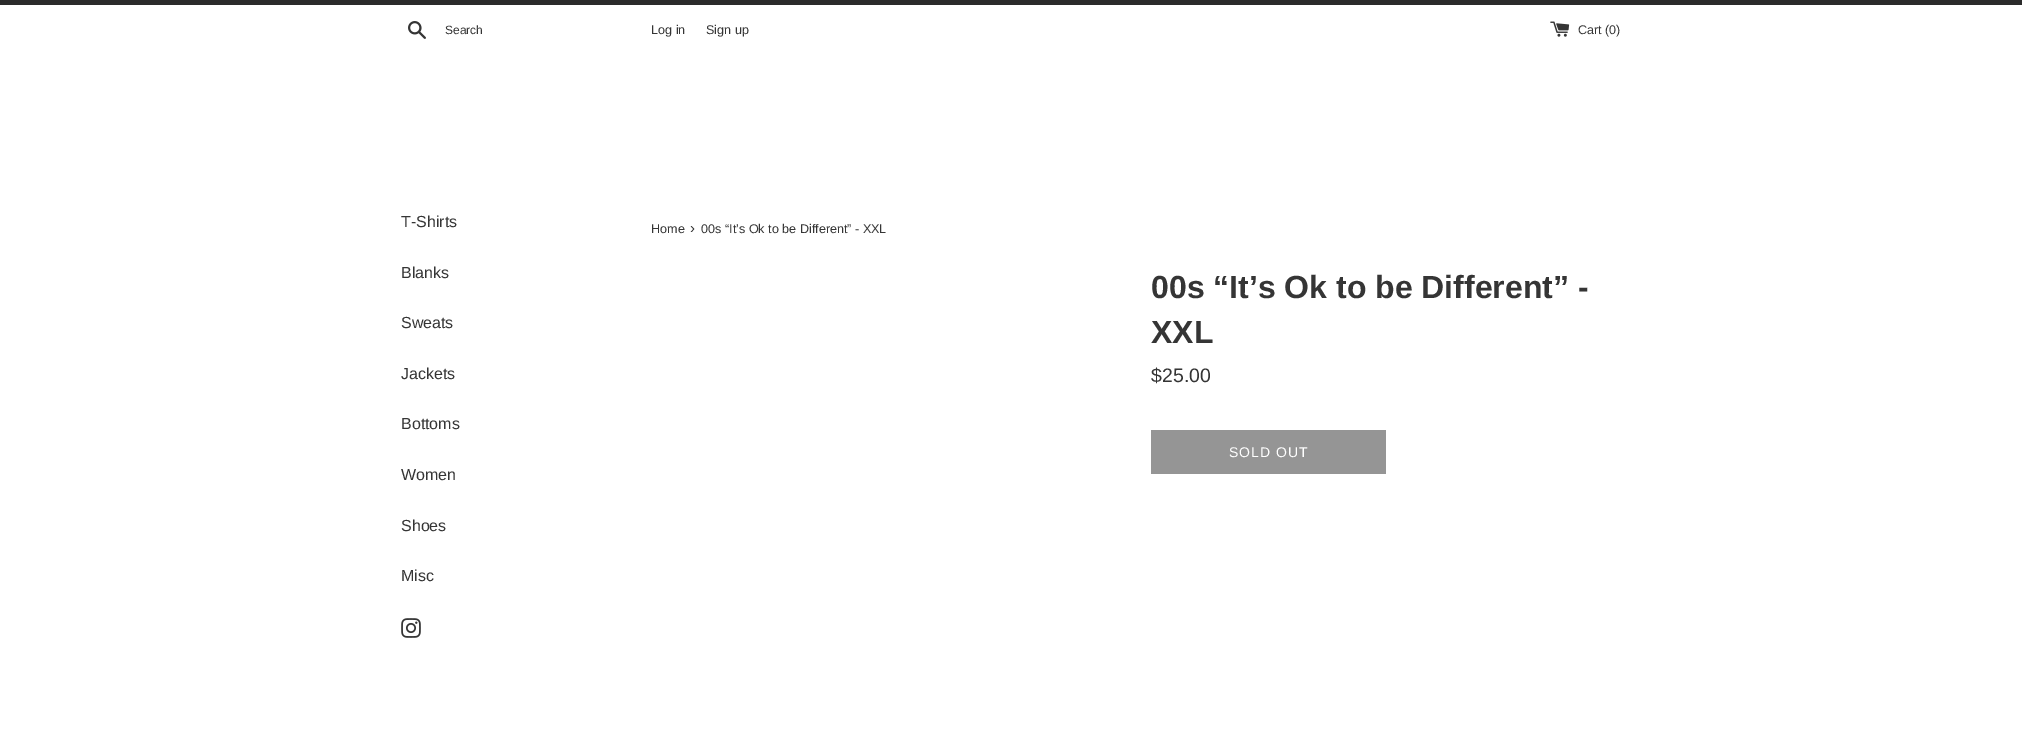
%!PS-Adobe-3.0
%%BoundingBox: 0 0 2022 748
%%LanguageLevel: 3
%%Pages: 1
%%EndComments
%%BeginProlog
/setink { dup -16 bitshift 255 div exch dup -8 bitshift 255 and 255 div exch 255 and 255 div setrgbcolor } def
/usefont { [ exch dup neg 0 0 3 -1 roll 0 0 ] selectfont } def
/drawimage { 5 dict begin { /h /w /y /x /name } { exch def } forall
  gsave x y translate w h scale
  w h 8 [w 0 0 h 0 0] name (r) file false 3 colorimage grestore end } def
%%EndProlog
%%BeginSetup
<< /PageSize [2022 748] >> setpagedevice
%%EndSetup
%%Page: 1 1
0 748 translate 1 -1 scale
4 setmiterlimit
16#FFFFFF setink
0 0 2022 748 rectfill
16#2B2B2B setink
0 0 2022 5 rectfill
(img1.raw) 408 21 18 18 drawimage
/LiberationSans-Regular 12 usefont
16#353535 setink
445 34 moveto (Search) show
/LiberationSans-Regular 12.6 usefont
651 34 moveto (Log in) show
706 34 moveto (Sign up) show
(img2.raw) 1550 21 20 16 drawimage
1578 34 moveto (Cart \(0\)) show
/LiberationSans-Regular 16 usefont
[
    [(T-Shirts) 401 227]
    [(Blanks) 401 278]
    [(Sweats) 401 328]
    [(Jackets) 401 379]
    [(Bottoms) 401 429]
    [(Women) 401 480]
    [(Shoes) 401 531]
    [(Misc) 401 581]
] { aload pop moveto show } forall
(img3.raw) 401 618 20 20 drawimage
/LiberationSans-Regular 12.6 usefont
651 233 moveto (Home) show
/LiberationSans-Regular 15 usefont
690 233 moveto (›) show
/LiberationSans-Regular 12.6 usefont
701 233 moveto (00s “It’s Ok to be Different” - XXL) show
/LiberationSans-Bold 32 usefont
1151 298 moveto (00s “It’s Ok to be Different” -) show
1151 343 moveto (XXL) show
/LiberationSans-Regular 19.5 usefont
1151 382 moveto ($25.00) show
16#959595 setink
1151 430 235 44 rectfill
/LiberationSans-Regular 14 usefont
16#FFFFFF setink
1229 457 moveto 1 0 (SOLD OUT) ashow
showpage
%%EOF
